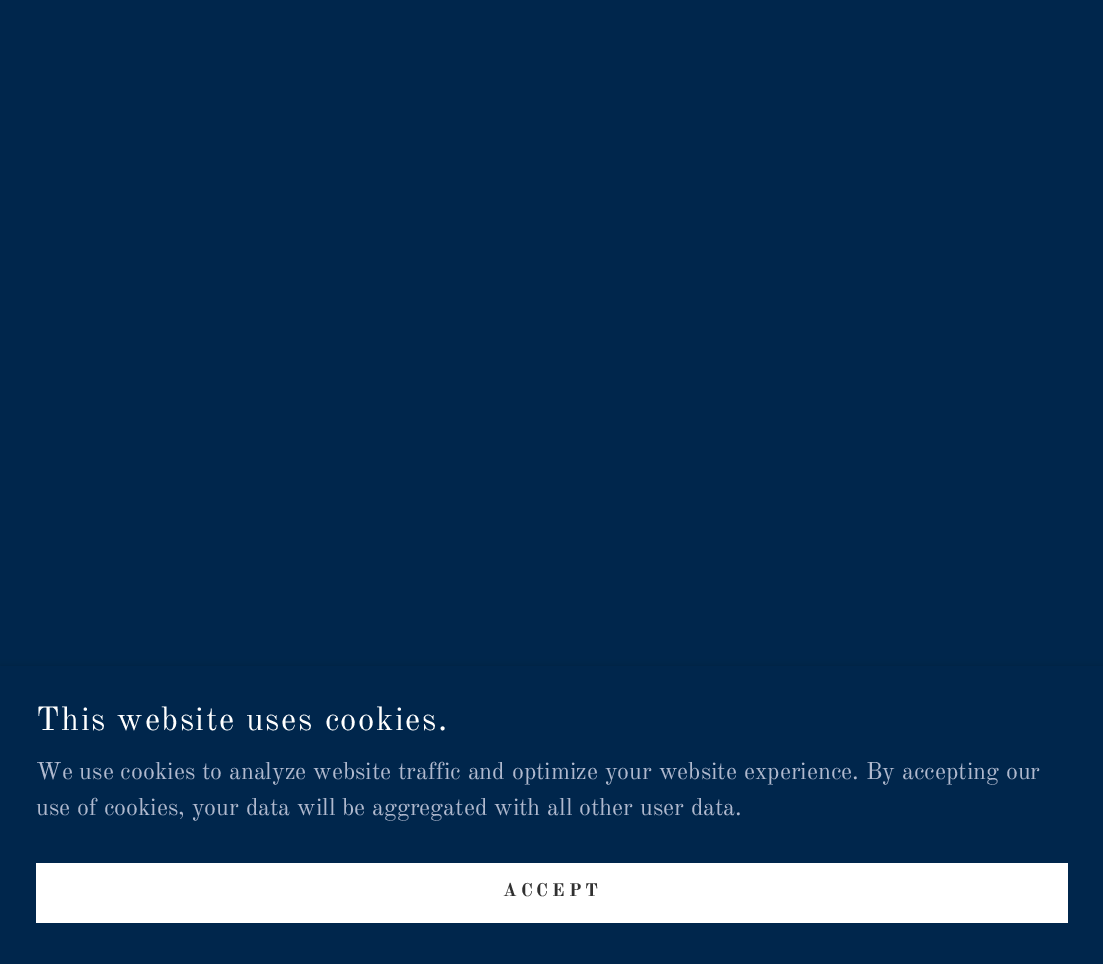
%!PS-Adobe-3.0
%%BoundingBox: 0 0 1103 964
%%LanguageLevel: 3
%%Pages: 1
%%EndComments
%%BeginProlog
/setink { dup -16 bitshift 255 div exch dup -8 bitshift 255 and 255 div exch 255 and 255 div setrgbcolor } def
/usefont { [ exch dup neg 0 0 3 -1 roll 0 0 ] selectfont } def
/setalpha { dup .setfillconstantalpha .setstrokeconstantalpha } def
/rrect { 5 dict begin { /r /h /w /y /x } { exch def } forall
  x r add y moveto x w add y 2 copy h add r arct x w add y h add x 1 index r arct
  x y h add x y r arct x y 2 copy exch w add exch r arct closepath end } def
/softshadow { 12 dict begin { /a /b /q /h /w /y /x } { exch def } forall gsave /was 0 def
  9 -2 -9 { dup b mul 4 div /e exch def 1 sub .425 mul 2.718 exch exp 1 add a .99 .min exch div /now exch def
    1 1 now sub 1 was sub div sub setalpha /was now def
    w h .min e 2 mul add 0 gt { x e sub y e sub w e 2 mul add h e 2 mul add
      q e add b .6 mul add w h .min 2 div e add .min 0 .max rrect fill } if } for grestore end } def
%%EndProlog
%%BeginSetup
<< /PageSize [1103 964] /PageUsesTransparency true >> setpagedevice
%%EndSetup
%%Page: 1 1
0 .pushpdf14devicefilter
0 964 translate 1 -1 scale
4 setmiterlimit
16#00264C setink
0 0 1103 964 rectfill
16#000000 setink
0 669 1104 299 0 4.5 0.3 softshadow
16#00264C setink
0 666 1103 298 rectfill
/OldStandardTT-Regular 33 usefont
16#FFFFFF setink
36 730 moveto 1.5 0 (This website uses cookies.) ashow
/OldStandardTT-Regular 24 usefont
16#B0B9CE setink
36 779 moveto (We use cookies to analyze website traffic and optimize your website experience. By accepting our) show
36 815 moveto (use of cookies, your data will be aggregated with all other user data.) show
16#FFFFFF setink
36 863 1032 60 rectfill
/OldStandardTT-Bold 18 usefont
16#303030 setink
503 896 moveto 4 0 (ACCEPT) ashow
.poppdf14devicefilter showpage
%%EOF
